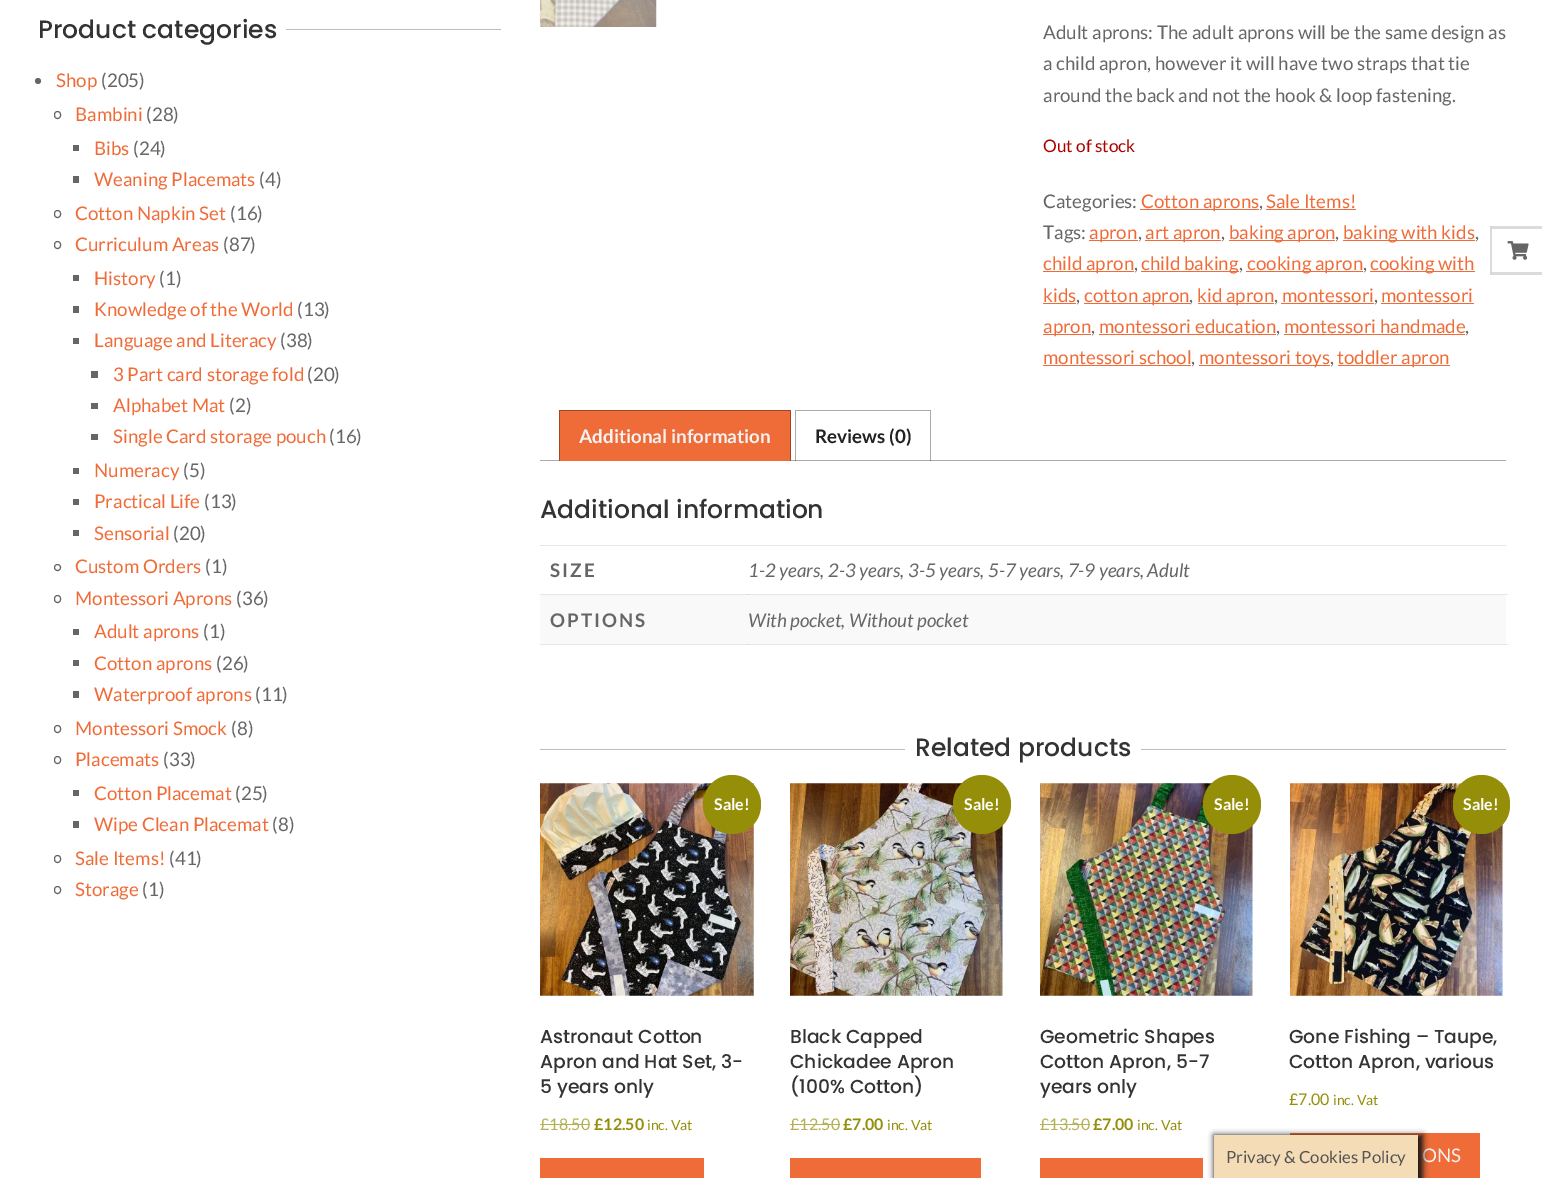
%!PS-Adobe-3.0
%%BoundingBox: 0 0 1542 1178
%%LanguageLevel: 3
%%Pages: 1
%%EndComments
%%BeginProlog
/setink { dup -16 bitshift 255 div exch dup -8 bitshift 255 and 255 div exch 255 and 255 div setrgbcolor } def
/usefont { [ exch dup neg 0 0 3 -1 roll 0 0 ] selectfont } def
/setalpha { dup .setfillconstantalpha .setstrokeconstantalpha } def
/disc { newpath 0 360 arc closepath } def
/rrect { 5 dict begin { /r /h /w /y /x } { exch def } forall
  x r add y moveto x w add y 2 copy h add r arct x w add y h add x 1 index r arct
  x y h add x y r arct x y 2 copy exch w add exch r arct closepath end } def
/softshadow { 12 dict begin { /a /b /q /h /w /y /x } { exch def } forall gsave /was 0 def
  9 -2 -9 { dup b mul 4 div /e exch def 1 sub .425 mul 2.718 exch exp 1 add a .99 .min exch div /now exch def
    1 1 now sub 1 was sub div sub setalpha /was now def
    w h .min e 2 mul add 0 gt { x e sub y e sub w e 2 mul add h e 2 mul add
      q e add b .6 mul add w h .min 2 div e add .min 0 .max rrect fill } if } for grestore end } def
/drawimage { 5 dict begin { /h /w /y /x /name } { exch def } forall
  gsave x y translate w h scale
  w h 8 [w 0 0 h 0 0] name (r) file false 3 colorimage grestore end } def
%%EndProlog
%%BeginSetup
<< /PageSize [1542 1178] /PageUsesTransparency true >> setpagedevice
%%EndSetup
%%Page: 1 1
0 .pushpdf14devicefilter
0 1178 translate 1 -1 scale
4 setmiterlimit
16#FFFFFF setink
0 0 1542 1178 rectfill
16#E6E6E6 setink
540 594 968 1 rectfill
540 644 968 1 rectfill
/Poppins-Medium 25 usefont
16#333333 setink
38 38 moveto (Product categories) show
16#BCBCBC setink
286 29 215 1 rectfill
16#666666 setink
38 81 3 disc fill
/Lato-Regular 18.75 usefont
16#EF6B37 setink
56 87 moveto (Shop) show
16#666666 setink
101 87 moveto (\(205\)) show
54.5 111.5 6 7 3 rrect stroke
16#EF6B37 setink
75 121 moveto (Bambini) show
16#666666 setink
146 121 moveto (\(28\)) show
73 145 6 6 rectfill
16#EF6B37 setink
94 155 moveto (Bibs) show
16#666666 setink
133 155 moveto (\(24\)) show
73 176 6 7 rectfill
16#EF6B37 setink
94 186 moveto (Weaning Placemats) show
16#666666 setink
259 186 moveto (\(4\)) show
54.5 210.5 6 7 3 rrect stroke
16#EF6B37 setink
75 220 moveto (Cotton Napkin Set) show
16#666666 setink
230 220 moveto (\(16\)) show
54.5 241.5 6 7 3 rrect stroke
16#EF6B37 setink
75 251 moveto (Curriculum Areas) show
16#666666 setink
223 251 moveto (\(87\)) show
73 275 6 6 rectfill
16#EF6B37 setink
94 285 moveto (History) show
16#666666 setink
159 285 moveto (\(1\)) show
73 306 6 7 rectfill
16#EF6B37 setink
94 316 moveto (Knowledge of the World) show
16#666666 setink
297 316 moveto (\(13\)) show
73 338 6 6 rectfill
16#EF6B37 setink
94 347 moveto (Language and Literacy) show
16#666666 setink
280 347 moveto (\(38\)) show
91 371 7 7 rectfill
16#EF6B37 setink
113 381 moveto (3 Part card storage fold) show
16#666666 setink
307 381 moveto (\(20\)) show
91 403 7 6 rectfill
16#EF6B37 setink
113 412 moveto (Alphabet Mat) show
16#666666 setink
229 412 moveto (\(2\)) show
91 434 7 6 rectfill
16#EF6B37 setink
113 443 moveto (Single Card storage pouch) show
16#666666 setink
329 443 moveto (\(16\)) show
73 468 6 6 rectfill
16#EF6B37 setink
94 477 moveto (Numeracy) show
16#666666 setink
183 477 moveto (\(5\)) show
73 499 6 6 rectfill
16#EF6B37 setink
94 508 moveto (Practical Life) show
16#666666 setink
204 508 moveto (\(13\)) show
73 530 6 6 rectfill
16#EF6B37 setink
94 540 moveto (Sensorial) show
16#666666 setink
173 540 moveto (\(20\)) show
57.5 567.5 3 disc stroke
16#EF6B37 setink
75 573 moveto (Custom Orders) show
16#666666 setink
205 573 moveto (\(1\)) show
54.5 595.5 6 7 3 rrect stroke
16#EF6B37 setink
75 605 moveto (Montessori Aprons) show
16#666666 setink
236 605 moveto (\(36\)) show
73 629 6 6 rectfill
16#EF6B37 setink
94 638 moveto (Adult aprons) show
16#666666 setink
203 638 moveto (\(1\)) show
73 660 6 6 rectfill
16#EF6B37 setink
94 670 moveto (Cotton aprons) show
16#666666 setink
216 670 moveto (\(26\)) show
73 691 6 7 rectfill
16#EF6B37 setink
94 701 moveto (Waterproof aprons) show
16#666666 setink
255 701 moveto (\(11\)) show
54.5 725.5 6 7 3 rrect stroke
16#EF6B37 setink
75 735 moveto (Montessori Smock) show
16#666666 setink
231 735 moveto (\(8\)) show
54.5 756.5 6 7 3 rrect stroke
16#EF6B37 setink
75 766 moveto (Placemats) show
16#666666 setink
163 766 moveto (\(33\)) show
73 790 6 6 rectfill
16#EF6B37 setink
94 800 moveto (Cotton Placemat) show
16#666666 setink
235 800 moveto (\(25\)) show
73 821 6 7 rectfill
16#EF6B37 setink
94 831 moveto (Wipe Clean Placemat) show
16#666666 setink
272 831 moveto (\(8\)) show
54.5 855.5 6 7 3 rrect stroke
16#EF6B37 setink
75 865 moveto (Sale Items!) show
16#666666 setink
169 865 moveto (\(41\)) show
54.5 886.5 6 7 3 rrect stroke
16#EF6B37 setink
75 896 moveto (Storage) show
16#666666 setink
142 896 moveto (\(1\)) show
(img1.raw) 540 0 117 27 drawimage
[
    [(Adult aprons: The adult aprons will be the same design as) 1043 39]
    [(a child apron, however it will have two straps that tie) 1043 70]
    [(around the back and not the hook & loop fastening.) 1043 102]
] { aload pop moveto show } forall
/Lato-Regular 17.25 usefont
16#AA0000 setink
1043 152 moveto (Out of stock) show
/Lato-Regular 18.75 usefont
16#666666 setink
1043 208 moveto (Categories:) show
16#EF6B37 setink
1140 209 119 1 rectfill
1141 208 moveto (Cotton aprons) show
16#666666 setink
1259 208 moveto (,) show
16#EF6B37 setink
1266 208 moveto (Sale Items!) show
1266 209 90 1 rectfill
16#666666 setink
1043 239 moveto (Tags:) show
16#EF6B37 setink
1089 240 49 1 rectfill
1089 239 moveto (apron) show
16#666666 setink
1138 239 moveto (,) show
16#EF6B37 setink
1145 240 76 1 rectfill
1145 239 moveto (art apron) show
16#666666 setink
1221 239 moveto (,) show
16#EF6B37 setink
1229 240 106 1 rectfill
1229 239 moveto (baking apron) show
16#666666 setink
1335 239 moveto (,) show
16#EF6B37 setink
1343 240 132 1 rectfill
1343 239 moveto (baking with kids) show
16#666666 setink
1475 239 moveto (,) show
16#EF6B37 setink
1043 271 91 1 rectfill
1043 270 moveto (child apron) show
16#666666 setink
1134 270 moveto (,) show
16#EF6B37 setink
1141 271 98 1 rectfill
1141 270 moveto (child baking) show
16#666666 setink
1239 270 moveto (,) show
16#EF6B37 setink
1246 271 117 1 rectfill
1247 270 moveto (cooking apron) show
16#666666 setink
1363 270 moveto (,) show
16#EF6B37 setink
1370 271 105 1 rectfill
1370 270 moveto (cooking with) show
1043 302 moveto (kids) show
1043 303 33 1 rectfill
16#666666 setink
1076 302 moveto (,) show
16#EF6B37 setink
1084 303 106 1 rectfill
1084 302 moveto (cotton apron) show
16#666666 setink
1189 302 moveto (,) show
16#EF6B37 setink
1198 303 76 1 rectfill
1197 302 moveto (kid apron) show
16#666666 setink
1274 302 moveto (,) show
16#EF6B37 setink
1282 302 moveto (montessori) show
1281 303 93 1 rectfill
16#666666 setink
1374 302 moveto (,) show
16#EF6B37 setink
1381 302 moveto (montessori) show
1381 303 93 1 rectfill
1043 334 48 1 rectfill
1043 333 moveto (apron) show
16#666666 setink
1091 333 moveto (,) show
16#EF6B37 setink
1099 333 moveto (montessori education) show
1099 334 177 1 rectfill
16#666666 setink
1276 333 moveto (,) show
16#EF6B37 setink
1284 333 moveto (montessori handmade) show
1284 334 181 1 rectfill
16#666666 setink
1465 333 moveto (,) show
16#EF6B37 setink
1043 364 moveto (montessori school) show
1043 365 148 1 rectfill
16#666666 setink
1191 364 moveto (,) show
16#EF6B37 setink
1199 365 131 1 rectfill
1199 364 moveto (montessori toys) show
16#666666 setink
1330 364 moveto (,) show
16#EF6B37 setink
1338 365 112 1 rectfill
1337 364 moveto (toddler apron) show
16#ABABAB setink
795 410 moveto 931 410 lineto 930 411 lineto 796 411 lineto closepath fill
0.33 setalpha
16#000000 setink
931 410 moveto 931 461 lineto 930 461 lineto 930 411 lineto closepath fill
795 461 moveto 795 410 lineto 796 411 lineto 796 461 lineto closepath fill
540 460 966 1 rectfill
1 setalpha
16#EF6B37 setink
559 410 232 51 rectfill
16#A04825 setink
559 410 moveto 791 410 lineto 790 411 lineto 560 411 lineto closepath fill
0.33 setalpha
16#000000 setink
791 410 moveto 791 461 lineto 790 461 lineto 790 411 lineto closepath fill
559 461 moveto 559 410 lineto 560 411 lineto 560 461 lineto closepath fill
/Lato-Bold 18.75 usefont
1 setalpha
16#F2F2F2 setink
579 443 moveto (Additional information) show
16#222222 setink
815 443 moveto (Reviews \(0\)) show
/Poppins-Medium 25 usefont
16#333333 setink
540 518 moveto (Additional information) show
16#E6E6E6 setink
540 545 966 1 rectfill
/Lato-Bold 18.75 usefont
16#666666 setink
550 577 moveto 2 0 (SIZE) ashow
16#CFCFCF setink
748 594 1 1 rectfill
/Lato-Italic 18.75 usefont
16#666666 setink
748 577 moveto (1-2 years, 2-3 years, 3-5 years, 5-7 years, 7-9 years, Adult) show
16#F9F9F9 setink
540 595 966 49 rectfill
/Lato-Bold 18.75 usefont
16#666666 setink
550 627 moveto 2 0 (OPTIONS) ashow
16#CFCFCF setink
748 644 1 1 rectfill
/Lato-Italic 18.75 usefont
16#666666 setink
748 627 moveto (With pocket, Without pocket) show
16#BCBCBC setink
540 749 365 1 rectfill
/Poppins-Medium 25 usefont
16#333333 setink
915 756 moveto (Related products) show
16#BCBCBC setink
1141 749 365 1 rectfill
(img2.raw) 540 783 214 213 drawimage
16#958E09 setink
703 775 58 59 29 rrect fill
/Lato-Bold 16 usefont
16#FFFFFF setink
714 810 moveto (Sale!) show
/Poppins-Medium 18.75 usefont
16#333333 setink
[
    [(Astronaut Cotton) 540 1043]
    [(Apron and Hat Set, 3-) 540 1068]
    [(5 years only) 540 1093]
] { aload pop moveto show } forall
/Lato-Regular 16 usefont
16#B5B053 setink
540 1130 moveto (£18.50) show
540 1124 50 1 rectfill
/Lato-Bold 16 usefont
16#958E09 setink
594 1130 moveto (£12.50) show
/Lato-Regular 14 usefont
647 1130 moveto (inc. Vat) show
16#EF6B37 setink
540 1158 164 20 rectfill
(img3.raw) 790 783 213 213 drawimage
16#958E09 setink
953 775 58 59 29 rrect fill
/Lato-Bold 16 usefont
16#FFFFFF setink
964 810 moveto (Sale!) show
/Poppins-Medium 18.75 usefont
16#333333 setink
[
    [(Black Capped) 790 1043]
    [(Chickadee Apron) 790 1068]
    [(\(100% Cotton\)) 790 1093]
] { aload pop moveto show } forall
/Lato-Regular 16 usefont
16#B5B053 setink
790 1130 moveto (£12.50) show
790 1124 50 1 rectfill
/Lato-Bold 16 usefont
16#958E09 setink
843 1130 moveto (£7.00) show
/Lato-Regular 14 usefont
887 1130 moveto (inc. Vat) show
16#EF6B37 setink
790 1158 191 20 rectfill
(img4.raw) 1040 783 213 213 drawimage
16#958E09 setink
1203 775 58 59 29 rrect fill
/Lato-Bold 16 usefont
16#FFFFFF setink
1214 810 moveto (Sale!) show
/Poppins-Medium 18.75 usefont
16#333333 setink
[
    [(Geometric Shapes) 1040 1043]
    [(Cotton Apron, 5-7) 1040 1068]
    [(years only) 1040 1093]
] { aload pop moveto show } forall
/Lato-Regular 16 usefont
16#B5B053 setink
1040 1130 moveto (£13.50) show
1040 1124 50 1 rectfill
/Lato-Bold 16 usefont
16#958E09 setink
1093 1130 moveto (£7.00) show
/Lato-Regular 14 usefont
1137 1130 moveto (inc. Vat) show
16#EF6B37 setink
1040 1158 163 20 rectfill
(img5.raw) 1290 783 213 213 drawimage
16#958E09 setink
1453 775 57 59 28.5 rrect fill
/Lato-Bold 16 usefont
16#FFFFFF setink
1463 810 moveto (Sale!) show
/Poppins-Medium 18.75 usefont
16#333333 setink
1289 1043 moveto (Gone Fishing – Taupe,) show
1289 1068 moveto (Cotton Apron, various) show
/Lato-Regular 16 usefont
16#958E09 setink
1289 1105 moveto (£7.00) show
/Lato-Regular 14 usefont
1333 1105 moveto (inc. Vat) show
16#EF6B37 setink
1290 1133 190 45 rectfill
/Lato-Regular 18.75 usefont
16#F2F2F2 setink
1422 1162 moveto (ONS) show
16#DBDBDB setink
1490 226 moveto 1542 226 lineto 1542 229 lineto 1492 229 lineto closepath 1542 275 moveto 1490 275 lineto 1492 272 lineto 1542 272 lineto closepath fill
0.14 setalpha
16#000000 setink
1490 275 moveto 1490 226 lineto 1492 229 lineto 1492 272 lineto closepath fill
1 setalpha
(img6.raw) 1507 241 22 19 drawimage
16#161616 setink
1214 1135 209 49 0 3 1 softshadow
16#F4DCB7 setink
1214 1135 204 43 rectfill
/Lato-Regular 16.75 usefont
16#545454 setink
1226 1163 moveto (Privacy & Cookies Policy) show
.poppdf14devicefilter showpage
%%EOF
